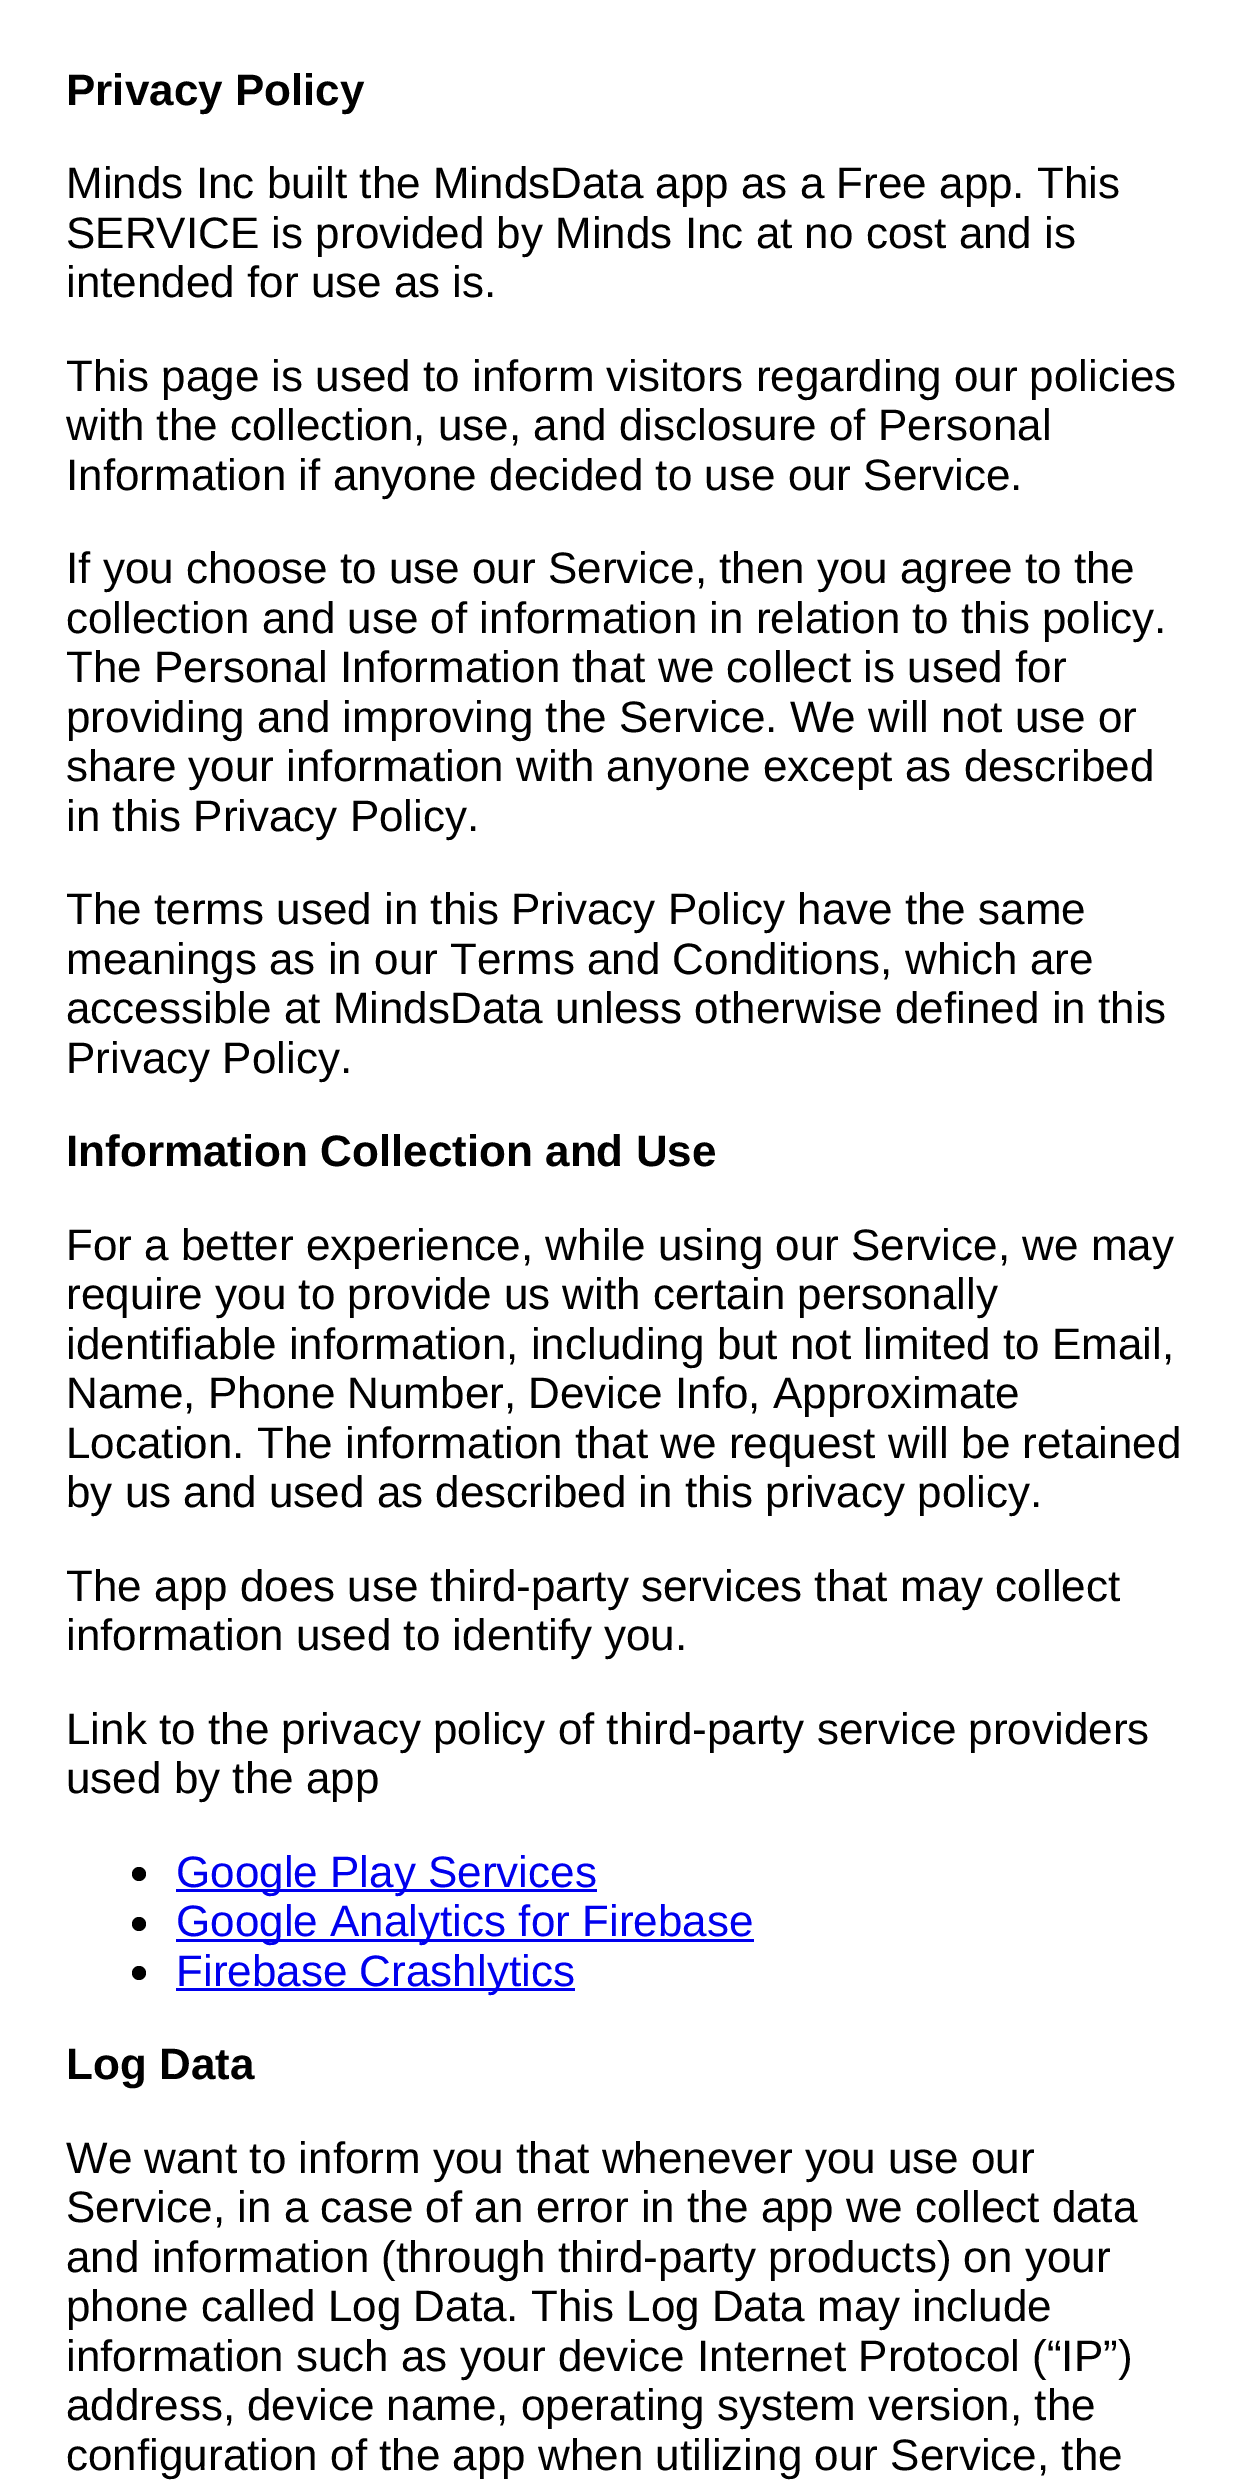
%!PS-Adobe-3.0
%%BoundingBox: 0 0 1255 2486
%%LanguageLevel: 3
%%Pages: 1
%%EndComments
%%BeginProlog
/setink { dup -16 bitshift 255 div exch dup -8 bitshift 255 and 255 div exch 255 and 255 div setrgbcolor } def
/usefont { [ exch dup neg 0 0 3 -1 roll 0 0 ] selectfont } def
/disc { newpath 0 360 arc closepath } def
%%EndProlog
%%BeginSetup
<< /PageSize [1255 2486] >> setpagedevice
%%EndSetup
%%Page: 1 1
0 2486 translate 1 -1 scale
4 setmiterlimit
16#FFFFFF setink
0 0 1255 2486 rectfill
/LiberationSans-Bold 44 usefont
16#000000 setink
66 105 moveto (Privacy Policy) show
/LiberationSans-Regular 44 usefont
[
    [(Minds Inc built the MindsData app as a Free app. This) 66 198]
    [(SERVICE is provided by Minds Inc at no cost and is) 66 248]
    [(intended for use as is.) 66 297]
    [(This page is used to inform visitors regarding our policies) 66 391]
    [(with the collection, use, and disclosure of Personal) 66 440]
    [(Information if anyone decided to use our Service.) 66 490]
    [(If you choose to use our Service, then you agree to the) 66 583]
    [(collection and use of information in relation to this policy.) 66 633]
    [(The Personal Information that we collect is used for) 66 682]
    [(providing and improving the Service. We will not use or) 66 732]
    [(share your information with anyone except as described) 66 781]
    [(in this Privacy Policy.) 66 831]
    [(The terms used in this Privacy Policy have the same) 66 924]
    [(meanings as in our Terms and Conditions, which are) 66 974]
    [(accessible at MindsData unless otherwise defined in this) 66 1023]
    [(Privacy Policy.) 66 1073]
] { aload pop moveto show } forall
/LiberationSans-Bold 44 usefont
66 1166 moveto (Information Collection and Use) show
/LiberationSans-Regular 44 usefont
[
    [(For a better experience, while using our Service, we may) 66 1260]
    [(require you to provide us with certain personally) 66 1309]
    [(identifiable information, including but not limited to Email,) 66 1359]
    [(Name, Phone Number, Device Info, Approximate) 66 1408]
    [(Location. The information that we request will be retained) 66 1458]
    [(by us and used as described in this privacy policy.) 66 1507]
    [(The app does use third-party services that may collect) 66 1601]
    [(information used to identify you.) 66 1650]
    [(Link to the privacy policy of third-party service providers) 66 1744]
    [(used by the app) 66 1793]
] { aload pop moveto show } forall
139 1874 7 disc fill
16#0000EE setink
176 1889 421 3 rectfill
176 1887 moveto (Google Play Services) show
16#000000 setink
139 1924 7 disc fill
16#0000EE setink
176 1939 578 3 rectfill
176 1936 moveto (Google Analytics for Firebase) show
16#000000 setink
139 1973 7 disc fill
16#0000EE setink
176 1988 399 3 rectfill
176 1986 moveto (Firebase Crashlytics) show
/LiberationSans-Bold 44 usefont
16#000000 setink
66 2079 moveto (Log Data) show
/LiberationSans-Regular 44 usefont
[
    [(We want to inform you that whenever you use our) 66 2173]
    [(Service, in a case of an error in the app we collect data) 66 2222]
    [(and information \(through third-party products\) on your) 66 2272]
    [(phone called Log Data. This Log Data may include) 66 2321]
    [(information such as your device Internet Protocol \(“IP”\)) 66 2371]
    [(address, device name, operating system version, the) 66 2420]
    [(configuration of the app when utilizing our Service, the) 66 2470]
] { aload pop moveto show } forall
showpage
%%EOF
